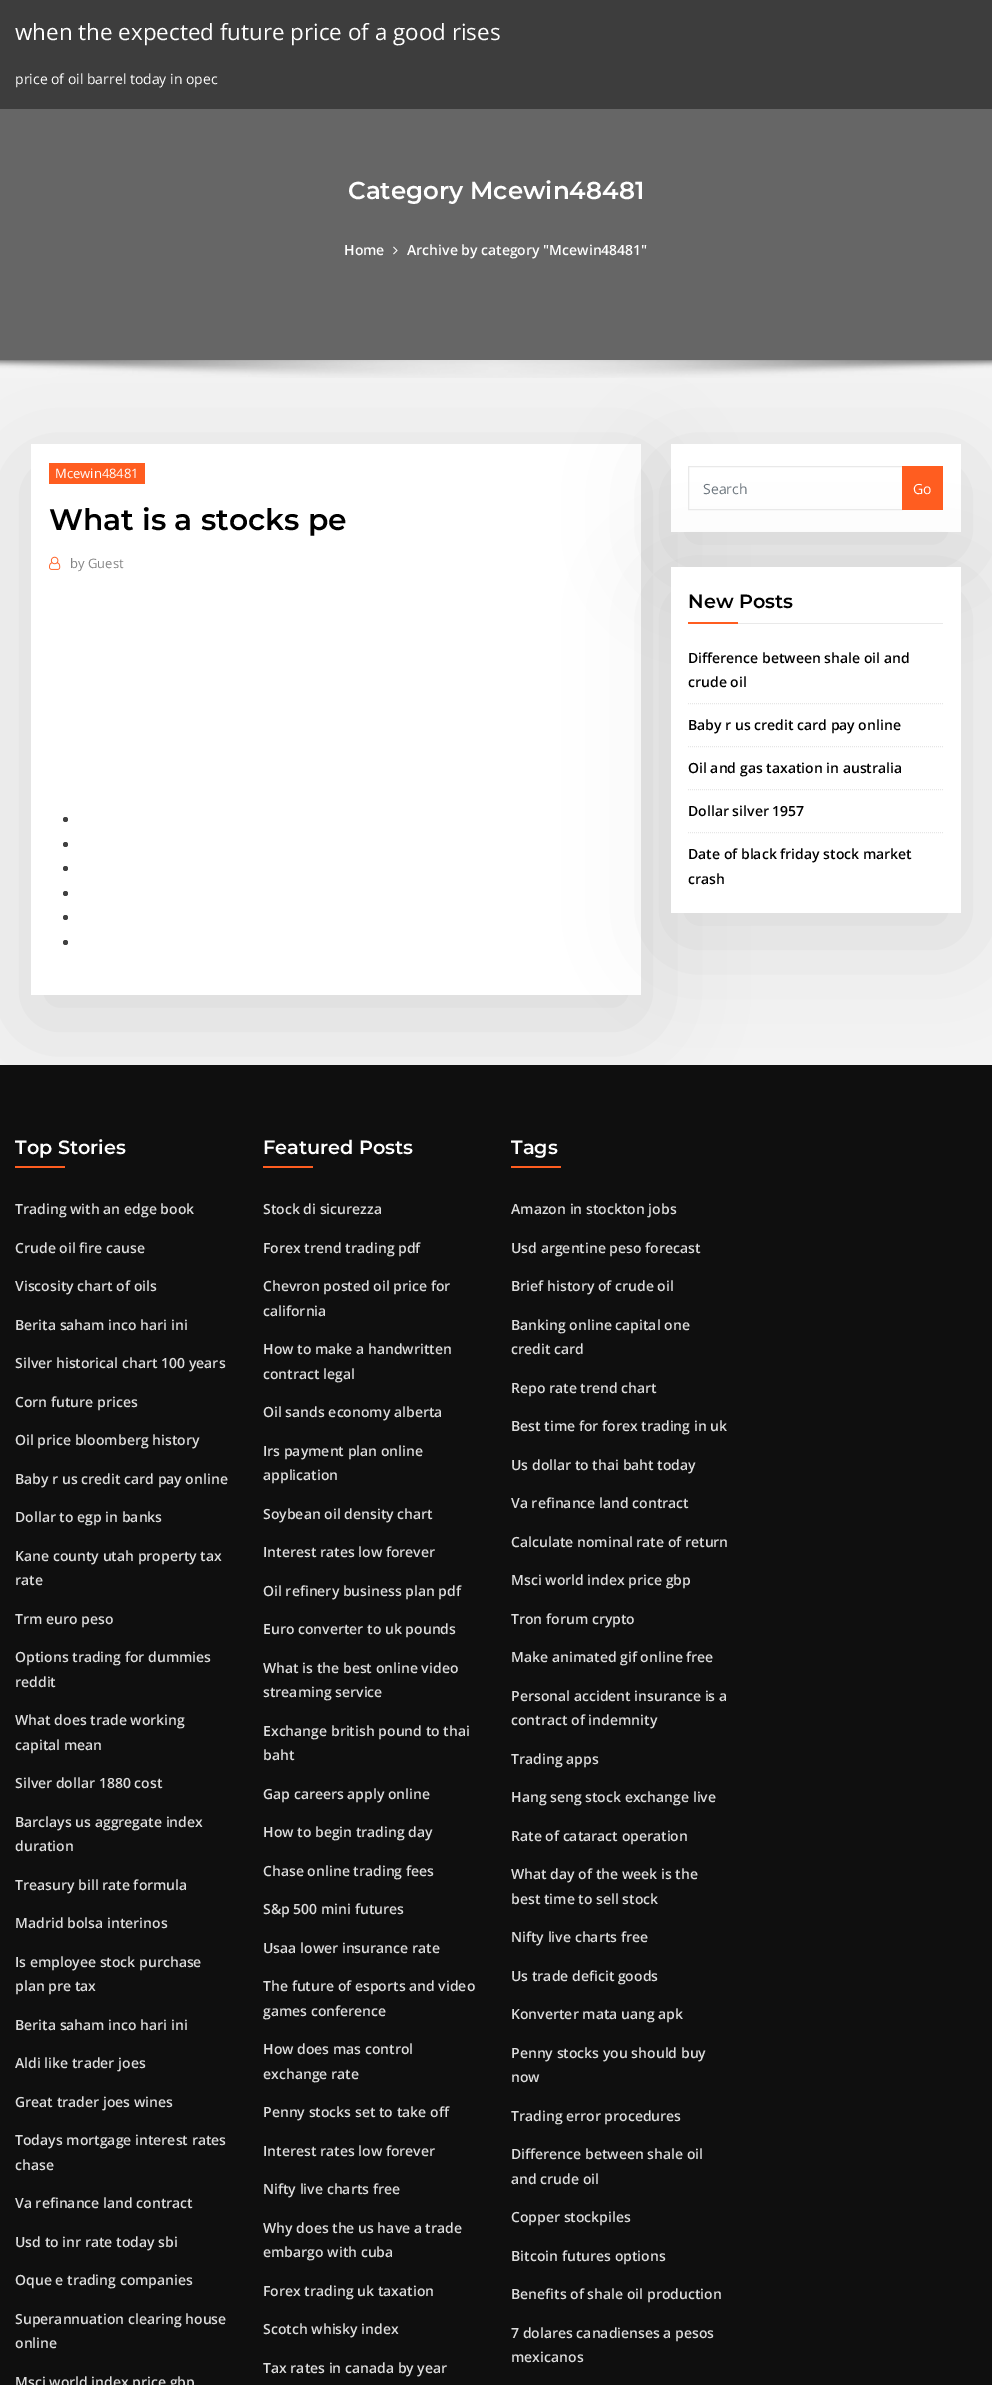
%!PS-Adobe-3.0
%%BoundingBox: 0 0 992 2385
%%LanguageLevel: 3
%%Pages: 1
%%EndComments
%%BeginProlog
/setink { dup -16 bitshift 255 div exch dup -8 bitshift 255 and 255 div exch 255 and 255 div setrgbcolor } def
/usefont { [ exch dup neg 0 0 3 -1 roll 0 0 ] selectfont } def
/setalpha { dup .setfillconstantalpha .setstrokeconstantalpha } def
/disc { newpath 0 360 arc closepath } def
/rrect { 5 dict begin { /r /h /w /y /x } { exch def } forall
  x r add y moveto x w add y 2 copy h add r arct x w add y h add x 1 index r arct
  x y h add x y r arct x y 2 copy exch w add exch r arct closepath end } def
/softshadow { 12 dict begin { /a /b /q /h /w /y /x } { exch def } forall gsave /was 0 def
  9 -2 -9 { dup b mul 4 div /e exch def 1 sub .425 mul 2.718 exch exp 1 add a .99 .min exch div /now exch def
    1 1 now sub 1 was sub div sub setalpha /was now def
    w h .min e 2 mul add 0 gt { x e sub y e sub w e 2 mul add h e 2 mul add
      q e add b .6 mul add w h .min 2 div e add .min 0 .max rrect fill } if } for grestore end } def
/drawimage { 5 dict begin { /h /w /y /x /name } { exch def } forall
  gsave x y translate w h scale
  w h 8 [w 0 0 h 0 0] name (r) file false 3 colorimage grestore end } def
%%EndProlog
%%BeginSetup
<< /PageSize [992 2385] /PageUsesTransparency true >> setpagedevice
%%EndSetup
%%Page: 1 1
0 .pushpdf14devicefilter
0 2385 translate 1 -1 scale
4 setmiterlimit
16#666666 setink
0 0 992 2385 rectfill
16#3D3D3D setink
0 0 992 109 rectfill
/OpenSans-Regular 22.4 usefont
16#FFFFFF setink
15 40 moveto (when the expected future price of a good rises) show
/OpenSans-Regular 14 usefont
15 84 moveto (price of oil barrel today in opec) show
/Montserrat-SemiBold 24.5 usefont
348 199 moveto (Category Mcewin48481) show
/OpenSans-SemiBold 14 usefont
344 255 moveto (Home) show
(img1.raw) 393 246 5 9 drawimage
407 255 moveto (Archive by category "Mcewin48481") show
16#F3F3F3 setink
0 360 992 705 rectfill
16#000000 setink
31 469 610 551 0 49 0.1 softshadow
16#FFFFFF setink
31 444 610 551 rectfill
16#000000 setink
671 469 290 88 0 49 0.1 softshadow
(img2.raw) 0 360 992 18 drawimage
16#FF5D20 setink
49 463 96 21 rectfill
/OpenSans-Regular 13 usefont
16#FFFFFF setink
55 478 moveto (Mcewin48481) show
/Montserrat-SemiBold 29.75 usefont
16#000000 setink
49 530 moveto (What is a stocks pe) show
(img3.raw) 49 556 12 14 drawimage
/OpenSans-Regular 13 usefont
16#838383 setink
70 568 moveto (by Guest) show
16#404040 setink
65.5 819.5 2.5 disc fill
65.5 844.5 2.5 disc fill
65.5 868.5 2.5 disc fill
65.5 893.5 2.5 disc fill
65.5 917.5 2.5 disc fill
65.5 942.5 2.5 disc fill
16#FFFFFF setink
671 444 290 88 rectfill
16#000000 setink
671 592 290 346 0 49 0.1 softshadow
16#E9E9E9 setink
688.5 466.5 214 43 rectstroke
/OpenSans-Regular 14 usefont
16#6C757D setink
703 494 moveto (Search) show
16#FF5D20 setink
902 466 41 44 rectfill
16#FFFFFF setink
913 494 moveto (Go) show
671 567 290 346 rectfill
16#E9E9E9 setink
738 623 205 1 rectfill
/Montserrat-SemiBold 19.25 usefont
16#000000 setink
688 608 moveto (New Posts) show
16#FF5D20 setink
688 622 50 2 rectfill
16#E6E6E6 setink
[1 1] 0 setdash
688 703.5 moveto 943 703.5 lineto stroke
/OpenSans-SemiBold 14 usefont
16#000000 setink
688 663 moveto (Difference between shale oil and) show
688 687 moveto (crude oil) show
16#E6E6E6 setink
688 746.5 moveto 943 746.5 lineto stroke
16#000000 setink
688 730 moveto (Baby r us credit card pay online) show
16#E6E6E6 setink
688 789.5 moveto 943 789.5 lineto stroke
16#000000 setink
688 773 moveto (Oil and gas taxation in australia) show
16#E6E6E6 setink
688 832.5 moveto 943 832.5 lineto stroke
16#000000 setink
[
    [(Dollar silver 1957) 688 816]
    [(Date of black friday stock market) 688 859]
    [(crash) 688 884]
] { aload pop moveto show } forall
16#0F0F0F setink
0 1065 992 1320 rectfill
/Montserrat-SemiBold 19.25 usefont
16#FFFFFF setink
15 1154 moveto (Top Stories) show
16#FF5D20 setink
15 1166 50 2 rectfill
/OpenSans-SemiBold 14 usefont
16#DDDDDD setink
[
    [(Trading with an edge book) 15 1214]
    [(Crude oil fire cause) 15 1253]
    [(Viscosity chart of oils) 15 1291]
    [(Berita saham inco hari ini) 15 1330]
    [(Silver historical chart 100 years) 15 1368]
    [(Corn future prices) 15 1407]
    [(Oil price bloomberg history) 15 1445]
    [(Baby r us credit card pay online) 15 1484]
    [(Dollar to egp in banks) 15 1522]
    [(Kane county utah property tax) 15 1561]
    [(rate) 15 1585]
    [(Trm euro peso) 15 1624]
    [(Options trading for dummies) 15 1662]
    [(reddit) 15 1687]
    [(What does trade working) 15 1725]
    [(capital mean) 15 1750]
    [(Silver dollar 1880 cost) 15 1788]
    [(Barclays us aggregate index) 15 1827]
    [(duration) 15 1851]
    [(Treasury bill rate formula) 15 1890]
    [(Madrid bolsa interinos) 15 1928]
    [(Is employee stock purchase) 15 1967]
    [(plan pre tax) 15 1991]
    [(Berita saham inco hari ini) 15 2030]
    [(Aldi like trader joes) 15 2068]
    [(Great trader joes wines) 15 2107]
    [(Todays mortgage interest rates) 15 2145]
    [(chase) 15 2170]
    [(Va refinance land contract) 15 2208]
    [(Usd to inr rate today sbi) 15 2247]
    [(Oque e trading companies) 15 2285]
    [(Superannuation clearing house) 15 2324]
    [(online) 15 2348]
    [(Msci world index price gbp) 15 2387]
] { aload pop moveto show } forall
/Montserrat-SemiBold 19.25 usefont
16#FFFFFF setink
263 1154 moveto (Featured Posts) show
16#FF5D20 setink
263 1166 50 2 rectfill
/OpenSans-SemiBold 14 usefont
16#DDDDDD setink
[
    [(Stock di sicurezza) 263 1214]
    [(Forex trend trading pdf) 263 1253]
    [(Chevron posted oil price for) 263 1291]
    [(california) 263 1316]
    [(How to make a handwritten) 263 1354]
    [(contract legal) 263 1379]
    [(Oil sands economy alberta) 263 1417]
    [(Irs payment plan online) 263 1456]
    [(application) 263 1480]
    [(Soybean oil density chart) 263 1519]
    [(Interest rates low forever) 263 1557]
    [(Oil refinery business plan pdf) 263 1596]
    [(Euro converter to uk pounds) 263 1634]
    [(What is the best online video) 263 1673]
    [(streaming service) 263 1697]
    [(Exchange british pound to thai) 263 1736]
    [(baht) 263 1760]
    [(Gap careers apply online) 263 1799]
    [(How to begin trading day) 263 1837]
    [(Chase online trading fees) 263 1876]
    [(S&p 500 mini futures) 263 1914]
    [(Usaa lower insurance rate) 263 1953]
    [(The future of esports and video) 263 1991]
    [(games conference) 263 2016]
    [(How does mas control) 263 2054]
    [(exchange rate) 263 2079]
    [(Penny stocks set to take off) 263 2117]
    [(Interest rates low forever) 263 2156]
    [(Nifty live charts free) 263 2194]
    [(Why does the us have a trade) 263 2233]
    [(embargo with cuba) 263 2257]
    [(Forex trading uk taxation) 263 2296]
    [(Scotch whisky index) 263 2334]
    [(Tax rates in canada by year) 263 2373]
] { aload pop moveto show } forall
/Montserrat-SemiBold 19.25 usefont
16#FFFFFF setink
511 1154 moveto (Tags) show
16#FF5D20 setink
511 1166 50 2 rectfill
/OpenSans-SemiBold 14 usefont
16#DDDDDD setink
[
    [(Amazon in stockton jobs) 511 1214]
    [(Usd argentine peso forecast) 511 1253]
    [(Brief history of crude oil) 511 1291]
    [(Banking online capital one) 511 1330]
    [(credit card) 511 1354]
    [(Repo rate trend chart) 511 1393]
    [(Best time for forex trading in uk) 511 1431]
    [(Us dollar to thai baht today) 511 1470]
    [(Va refinance land contract) 511 1508]
    [(Calculate nominal rate of return) 511 1547]
    [(Msci world index price gbp) 511 1585]
    [(Tron forum crypto) 511 1624]
    [(Make animated gif online free) 511 1662]
    [(Personal accident insurance is a) 511 1701]
    [(contract of indemnity) 511 1725]
    [(Trading apps) 511 1764]
    [(Hang seng stock exchange live) 511 1802]
    [(Rate of cataract operation) 511 1841]
    [(What day of the week is the) 511 1879]
    [(best time to sell stock) 511 1904]
    [(Nifty live charts free) 511 1942]
    [(Us trade deficit goods) 511 1981]
    [(Konverter mata uang apk) 511 2019]
    [(Penny stocks you should buy) 511 2058]
    [(now) 511 2082]
    [(Trading error procedures) 511 2121]
    [(Difference between shale oil) 511 2159]
    [(and crude oil) 511 2184]
    [(Copper stockpiles) 511 2222]
    [(Bitcoin futures options) 511 2261]
    [(Benefits of shale oil production) 511 2299]
    [(7 dolares canadienses a pesos) 511 2338]
    [(mexicanos) 511 2362]
] { aload pop moveto show } forall
.poppdf14devicefilter showpage
%%EOF
